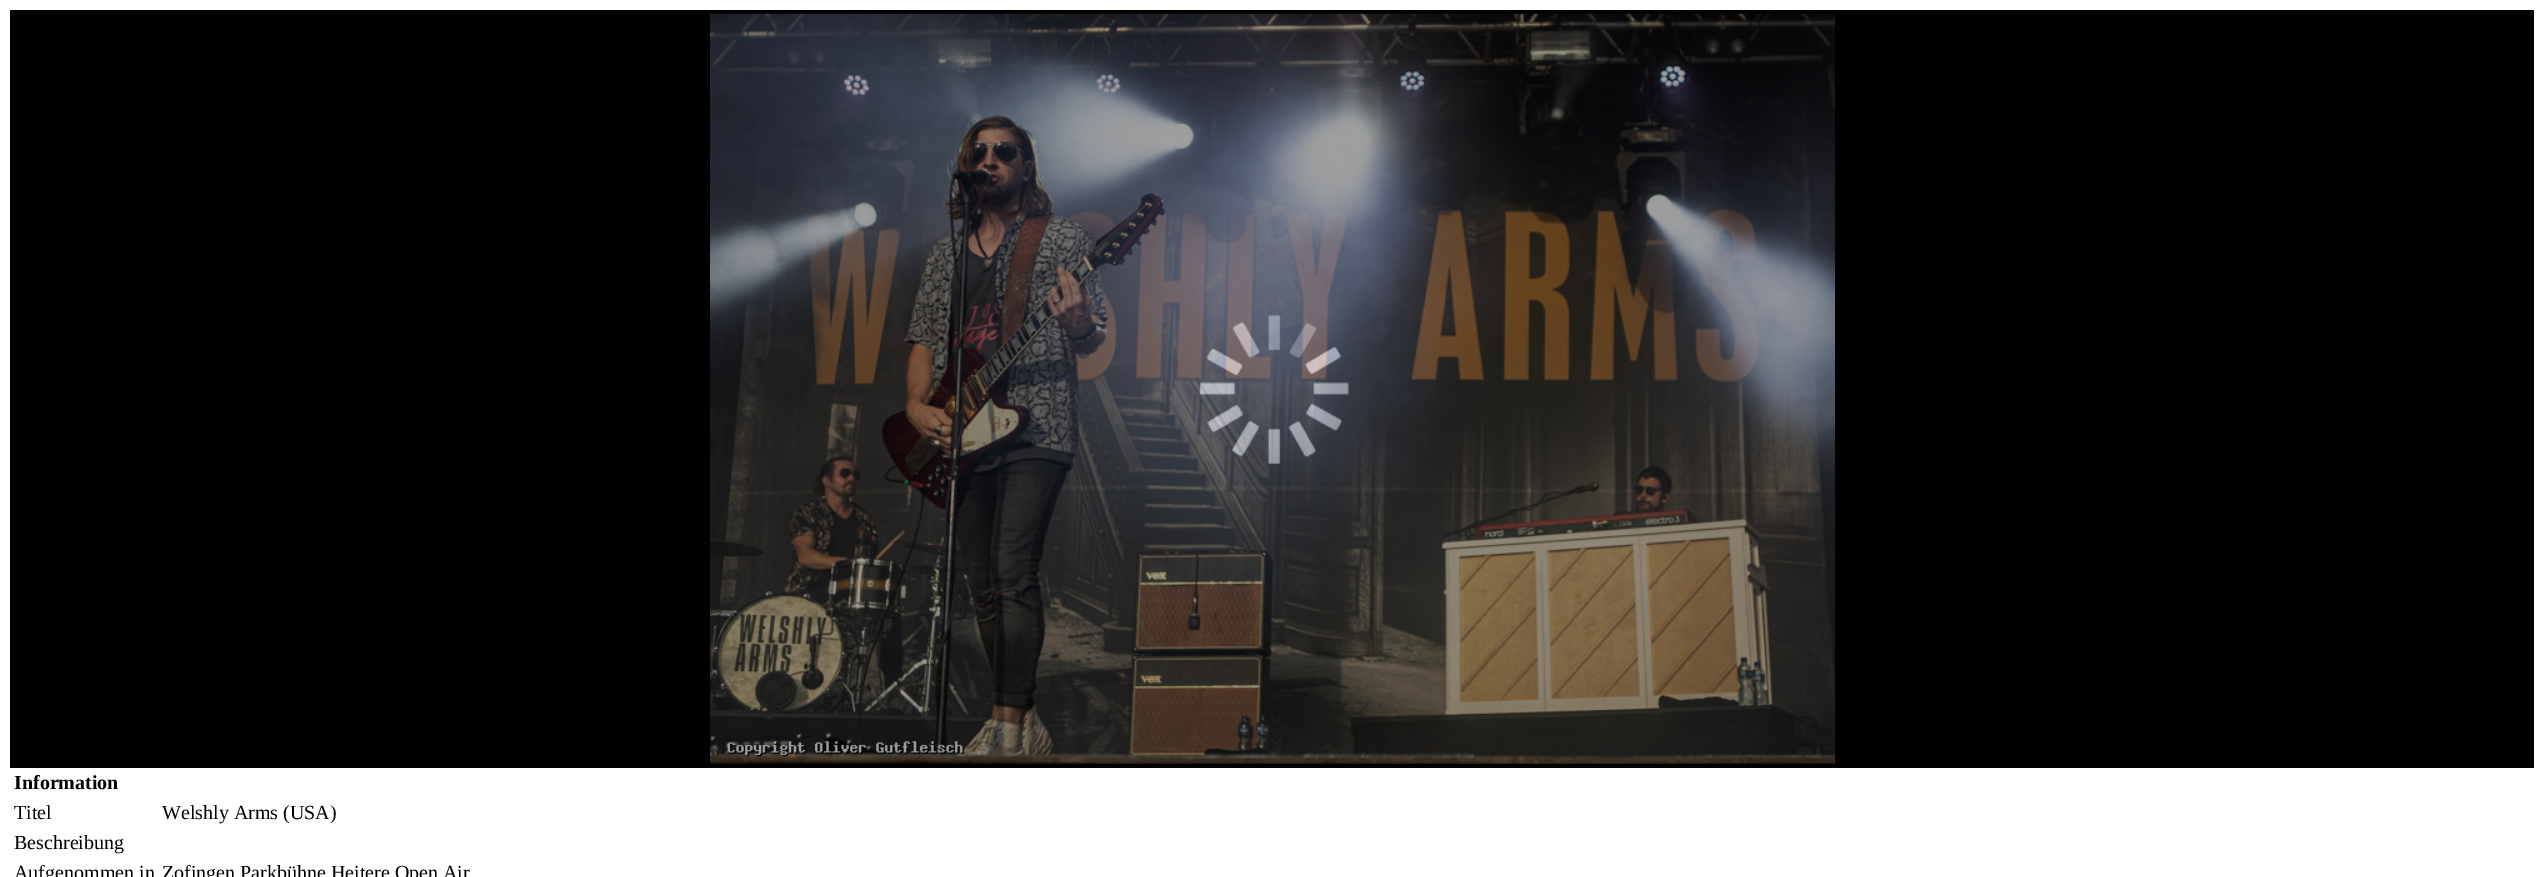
%!PS-Adobe-3.0
%%BoundingBox: 0 0 2543 877
%%LanguageLevel: 3
%%Pages: 1
%%EndComments
%%BeginProlog
/setink { dup -16 bitshift 255 div exch dup -8 bitshift 255 and 255 div exch 255 and 255 div setrgbcolor } def
/usefont { [ exch dup neg 0 0 3 -1 roll 0 0 ] selectfont } def
/drawimage { 5 dict begin { /h /w /y /x /name } { exch def } forall
  gsave x y translate w h scale
  w h 8 [w 0 0 h 0 0] name (r) file false 3 colorimage grestore end } def
%%EndProlog
%%BeginSetup
<< /PageSize [2543 877] >> setpagedevice
%%EndSetup
%%Page: 1 1
0 877 translate 1 -1 scale
4 setmiterlimit
16#FFFFFF setink
0 0 2543 877 rectfill
16#000000 setink
10 10 2524 758 rectfill
(img1.raw) 1199 314 150 150 drawimage
(img2.raw) 710 13 1125 751 drawimage
/LiberationSerif-Bold 20 usefont
14 789 moveto (Information) show
/LiberationSerif-Regular 20 usefont
[
    [(Titel) 14 819]
    [(Welshly Arms \(USA\)) 162 819]
    [(Beschreibung) 14 849]
    [(Aufgenommen in) 14 879]
    [(Zofingen Parkbühne Heitere Open Air) 162 879]
] { aload pop moveto show } forall
showpage
%%EOF
